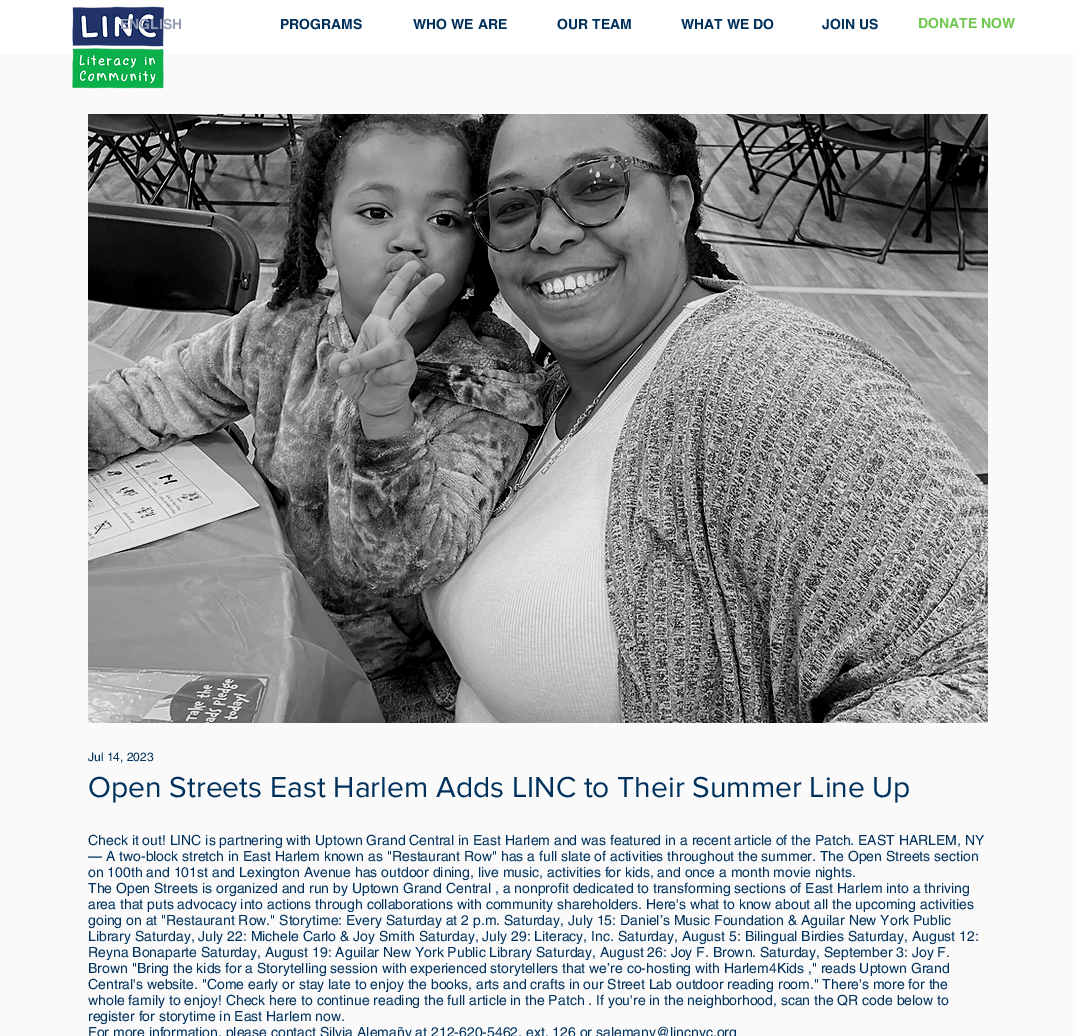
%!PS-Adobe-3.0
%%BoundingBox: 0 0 1076 1036
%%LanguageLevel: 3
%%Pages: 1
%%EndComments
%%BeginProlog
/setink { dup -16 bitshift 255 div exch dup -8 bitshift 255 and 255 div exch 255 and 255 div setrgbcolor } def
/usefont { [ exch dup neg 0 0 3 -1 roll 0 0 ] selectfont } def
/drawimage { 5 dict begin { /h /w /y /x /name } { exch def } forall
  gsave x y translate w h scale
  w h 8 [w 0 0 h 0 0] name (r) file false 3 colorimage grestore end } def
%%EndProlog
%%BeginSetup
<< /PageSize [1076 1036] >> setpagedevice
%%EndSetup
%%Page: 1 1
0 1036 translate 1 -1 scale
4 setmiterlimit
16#FFFFFF setink
0 0 1076 1036 rectfill
16#FAFAFA setink
0 54 1076 982 rectfill
(img1.raw) 72 6 93 83 drawimage
/helvetica-Bold 14 usefont
16#00315D setink
[
    [(PROGRAMS) 280 29]
    [(WHO WE ARE) 413 29]
    [(OUR TEAM) 557 29]
    [(WHAT WE DO) 681 29]
    [(JOIN US) 822 29]
] { aload pop moveto show } forall
16#70C74F setink
918 28 moveto (DONATE NOW) show
(img2.raw) 88 114 900 609 drawimage
/helvetica-Regular 12 usefont
16#00315D setink
88 761 moveto (Jul 14, 2023) show
/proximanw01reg-Regular 30 usefont
88 797 moveto (Open Streets East Harlem Adds LINC to Their Summer Line Up) show
/helvetica-Regular 14 usefont
[
    [(Check it out! LINC is partnering with Uptown Grand Central in East Harlem and was featured in a recent article of the Patch. EAST HARLEM, NY) 88 845]
    [(— A two-block stretch in East Harlem known as "Restaurant Row" has a full slate of activities throughout the summer. The Open Streets section) 88 861]
    [(on 100th and 101st and Lexington Avenue has outdoor dining, live music, activities for kids, and once a month movie nights.) 88 877]
    [(The Open Streets is organized and run by Uptown Grand Central , a nonprofit dedicated to transforming sections of East Harlem into a thriving) 88 893]
    [(area that puts advocacy into actions through collaborations with community shareholders. Here's what to know about all the upcoming activities) 88 909]
    [(going on at "Restaurant Row." Storytime: Every Saturday at 2 p.m. Saturday, July 15: Daniel’s Music Foundation & Aguilar New York Public) 88 925]
    [(Library Saturday, July 22: Michele Carlo & Joy Smith Saturday, July 29: Literacy, Inc. Saturday, August 5: Bilingual Birdies Saturday, August 12:) 88 941]
    [(Reyna Bonaparte Saturday, August 19: Aguilar New York Public Library Saturday, August 26: Joy F. Brown. Saturday, September 3: Joy F.) 88 957]
    [(Brown "Bring the kids for a Storytelling session with experienced storytellers that we’re co-hosting with Harlem4Kids ," reads Uptown Grand) 88 973]
    [(Central's website. "Come early or stay late to enjoy the books, arts and crafts in our Street Lab outdoor reading room." There's more for the) 88 989]
    [(whole family to enjoy! Check here to continue reading the full article in the Patch . If you're in the neighborhood, scan the QR code below to) 88 1005]
    [(register for storytime in East Harlem now.) 88 1021]
    [(For more information, please contact Silvia Alemañy at 212-620-5462, ext. 126 or salemany@lincnyc.org) 88 1037]
] { aload pop moveto show } forall
/helvetica-Bold 14 usefont
16#959DB6 setink
120 29 moveto (ENGLISH) show
showpage
%%EOF
